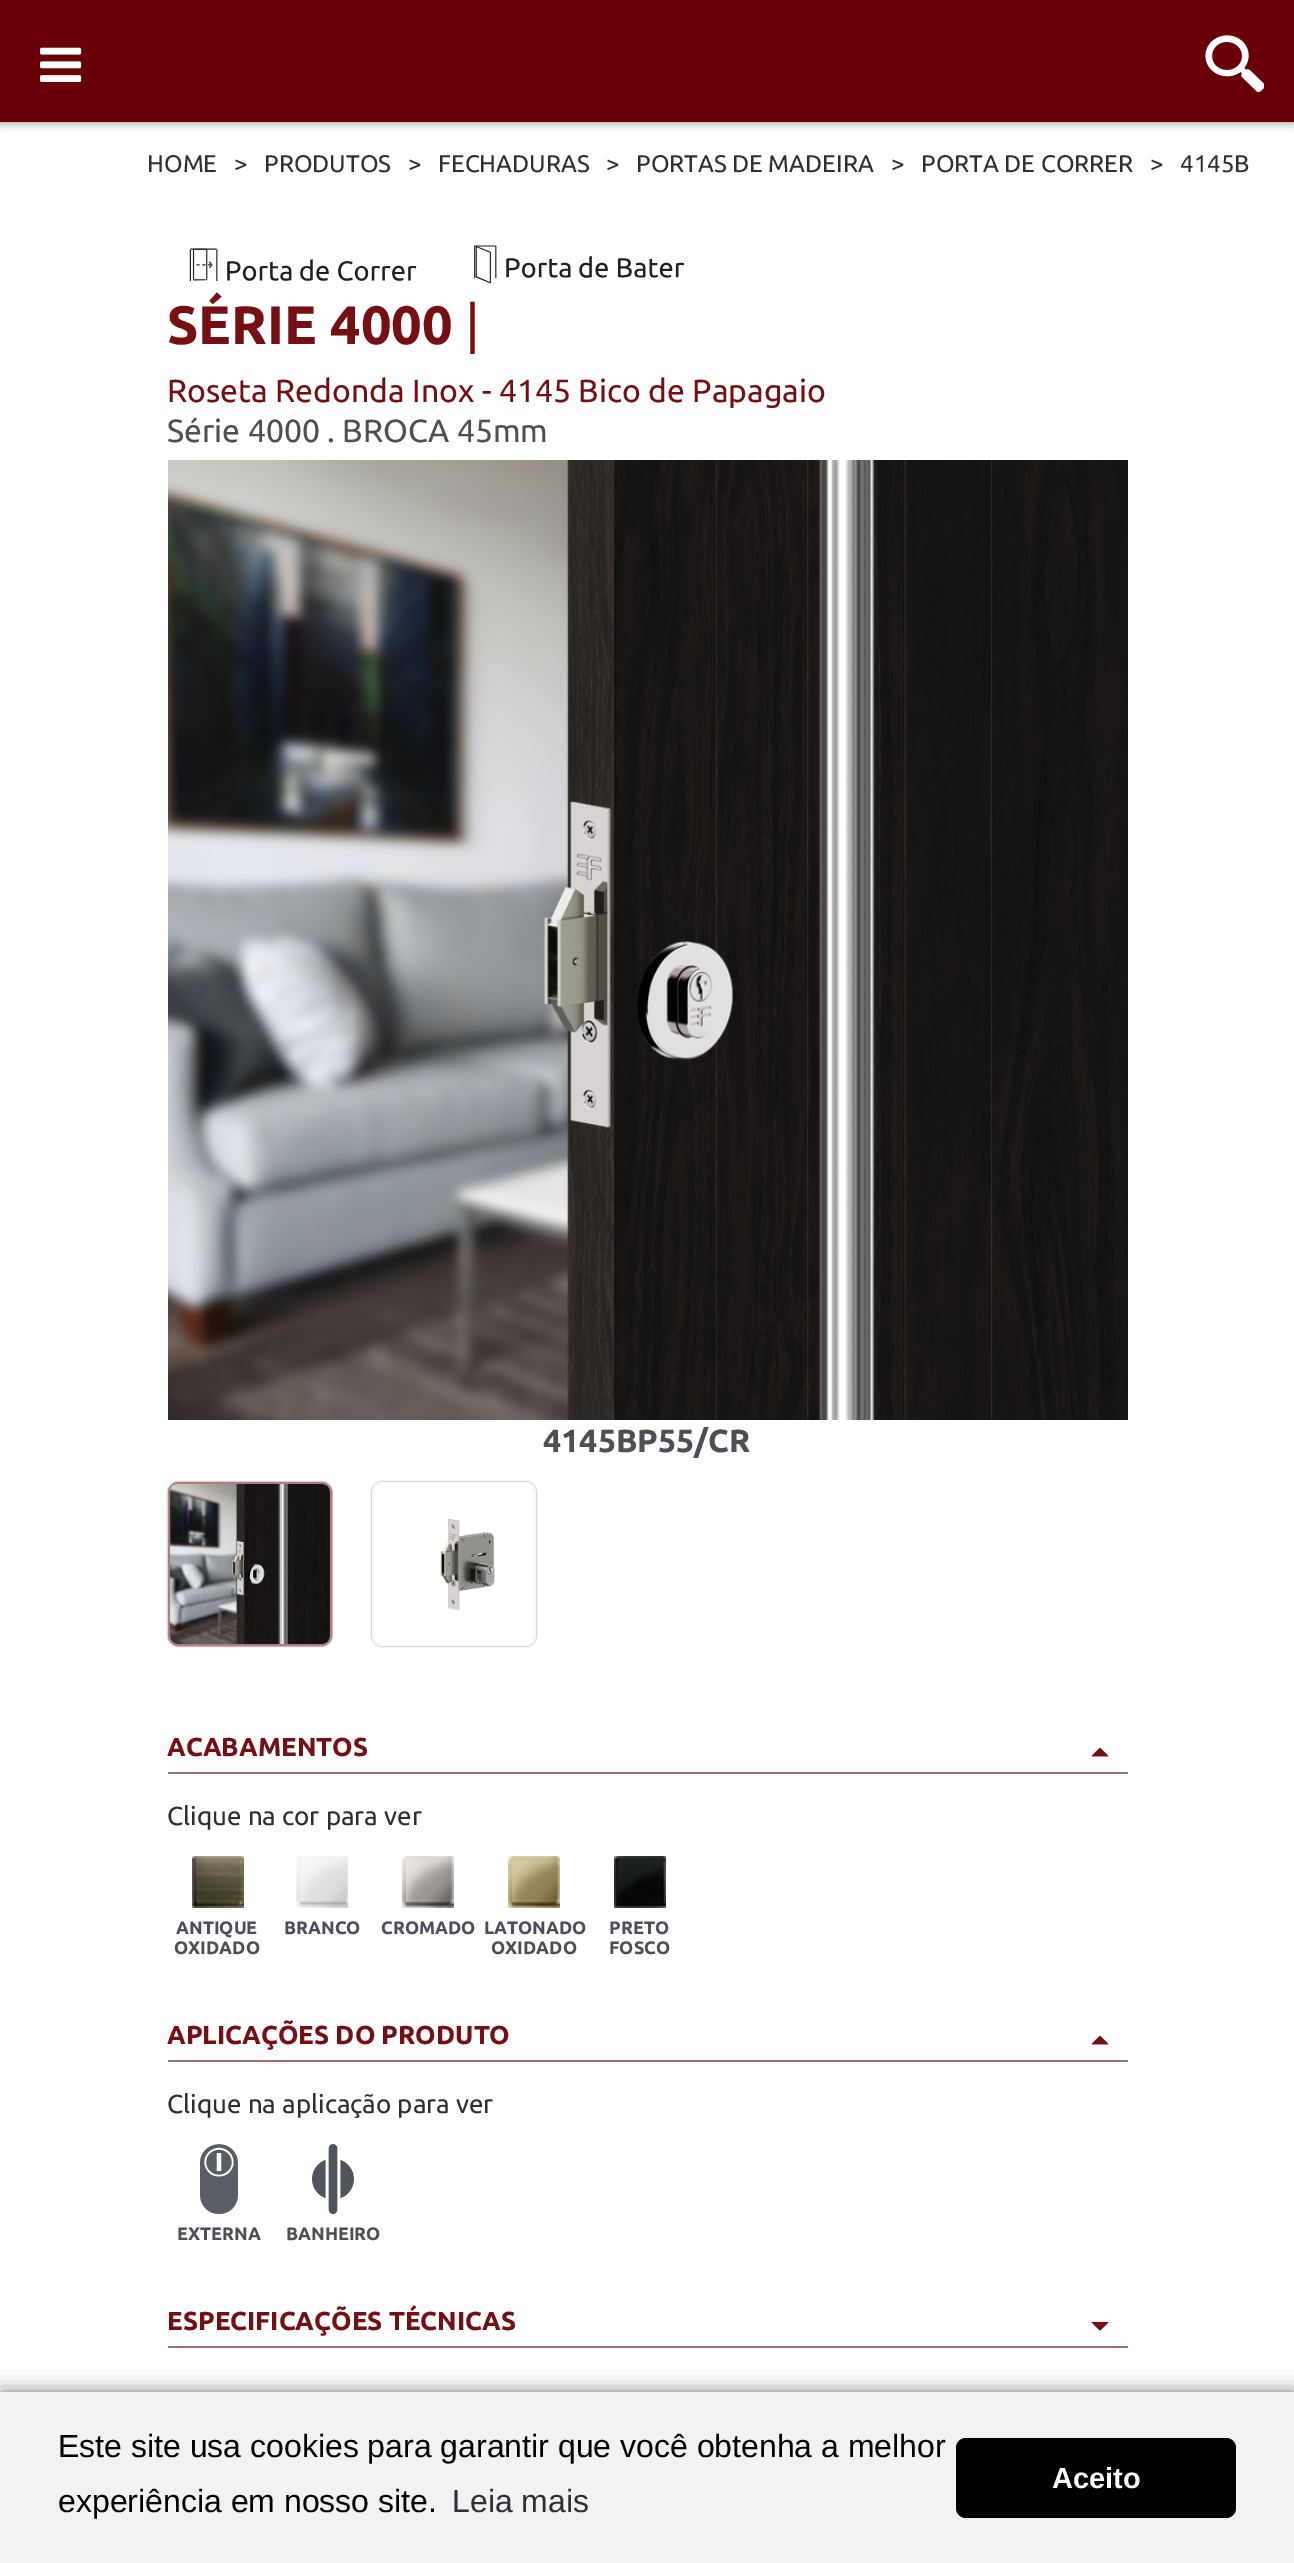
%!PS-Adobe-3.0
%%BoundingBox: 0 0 1294 2563
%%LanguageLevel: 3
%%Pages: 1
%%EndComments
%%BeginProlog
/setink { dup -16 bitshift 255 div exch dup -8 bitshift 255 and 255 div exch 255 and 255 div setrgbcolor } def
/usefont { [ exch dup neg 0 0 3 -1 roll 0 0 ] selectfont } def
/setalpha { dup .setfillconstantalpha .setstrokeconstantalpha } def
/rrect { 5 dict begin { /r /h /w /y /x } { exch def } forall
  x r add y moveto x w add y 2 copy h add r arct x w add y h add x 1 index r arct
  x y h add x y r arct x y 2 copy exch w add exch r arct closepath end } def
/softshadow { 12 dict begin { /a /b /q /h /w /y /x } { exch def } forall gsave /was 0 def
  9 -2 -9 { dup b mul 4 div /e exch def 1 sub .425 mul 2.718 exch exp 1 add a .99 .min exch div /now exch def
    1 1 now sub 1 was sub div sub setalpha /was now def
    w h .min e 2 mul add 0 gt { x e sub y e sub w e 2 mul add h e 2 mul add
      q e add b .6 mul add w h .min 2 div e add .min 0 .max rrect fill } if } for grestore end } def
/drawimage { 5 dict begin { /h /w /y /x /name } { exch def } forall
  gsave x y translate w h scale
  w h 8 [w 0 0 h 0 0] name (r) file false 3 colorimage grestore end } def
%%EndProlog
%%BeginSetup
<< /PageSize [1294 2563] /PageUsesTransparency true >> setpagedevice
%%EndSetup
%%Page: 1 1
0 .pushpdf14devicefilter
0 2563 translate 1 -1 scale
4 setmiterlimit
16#FFFFFF setink
0 0 1294 2563 rectfill
16#000000 setink
0 0 1294 122 0 5 0.5 softshadow
16#680108 setink
0 0 1294 122 rectfill
(img1.raw) 40 47 42 35 drawimage
(img2.raw) 1205 35 59 58 drawimage
/Ubuntu-Regular 24 usefont
16#2D2F34 setink
[
    [(HOME) 147 172]
    [(>) 234 172]
    [(PRODUTOS) 264 172]
    [(>) 408 172]
    [(FECHADURAS) 438 172]
    [(>) 606 172]
    [(PORTAS DE MADEIRA) 636 172]
    [(>) 891 172]
    [(PORTA DE CORRER) 921 172]
    [(>) 1150 172]
    [(4145B) 1180 172]
] { aload pop moveto show } forall
(img3.raw) 189 248 228 33 drawimage
(img4.raw) 474 245 210 39 drawimage
/Ubuntu-Bold 54 usefont
16#750F12 setink
167 344 moveto (SÉRIE 4000) show
/Ubuntu-Regular 54 usefont
465 344 moveto (|) show
/Ubuntu-Regular 32 usefont
167 402 moveto (Roseta Redonda Inox - 4145 Bico de Papagaio) show
16#4D4F56 setink
167 442 moveto (Série 4000 . BROCA 45mm) show
(img5.raw) 168 460 960 960 drawimage
/Ubuntu-Bold 32 usefont
543 1452 moveto (4145BP55/CR) show
gsave
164 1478 moveto 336 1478 lineto 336 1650 lineto 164 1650 lineto closepath 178 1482 moveto 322 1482 lineto 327.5 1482 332 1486.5 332 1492 curveto 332 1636 lineto 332 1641.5 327.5 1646 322 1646 curveto 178 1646 lineto 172.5 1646 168 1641.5 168 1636 curveto 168 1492 lineto 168 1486.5 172.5 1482 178 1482 curveto closepath eoclip newpath
16#000000 setink
168 1482 164 164 10 1 0.5 softshadow
grestore
16#F8F8F8 setink
168 1482 164 164 10 rrect fill
0.5 setalpha
16#680108 setink
2 setlinewidth
169 1483 162 162 9 rrect stroke
1 setalpha
(img6.raw) 170 1484 160 160 drawimage
16#000000 setink
372 1482 164 164 10 1 0.5 softshadow
16#F8F8F8 setink
372 1482 164 164 10 rrect fill
(img7.raw) 374 1484 160 160 drawimage
16#AC6F71 setink
168 1772 960 2 rectfill
/Ubuntu-Bold 26 usefont
16#750F12 setink
167 1756 moveto (ACABAMENTOS) show
(img8.raw) 1091 1748 18 9 drawimage
/Ubuntu-Regular 26 usefont
16#2D2F34 setink
167 1825 moveto (Clique na cor para ver) show
(img9.raw) 192 1856 52 52 drawimage
/Ubuntu-Bold 18 usefont
16#4D4F56 setink
176 1934 moveto (ANTIQUE) show
174 1954 moveto (OXIDADO) show
(img10.raw) 296 1856 52 52 drawimage
284 1934 moveto (BRANCO) show
(img11.raw) 402 1856 52 52 drawimage
381 1934 moveto (CROMADO) show
(img12.raw) 508 1856 52 52 drawimage
484 1934 moveto (LATONADO) show
491 1954 moveto (OXIDADO) show
(img13.raw) 614 1856 52 52 drawimage
609 1934 moveto (PRETO) show
609 1954 moveto (FOSCO) show
16#AC6F71 setink
168 2060 960 2 rectfill
/Ubuntu-Bold 26 usefont
16#750F12 setink
167 2044 moveto (APLICAÇÕES DO PRODUTO) show
(img8.raw) 1091 2036 18 9 drawimage
/Ubuntu-Regular 26 usefont
16#2D2F34 setink
167 2113 moveto (Clique na aplicação para ver) show
(img14.raw) 200 2144 38 70 drawimage
/Ubuntu-Bold 18 usefont
16#4D4F56 setink
177 2240 moveto (EXTERNA) show
(img15.raw) 312 2144 42 70 drawimage
286 2240 moveto (BANHEIRO) show
16#AC6F71 setink
168 2346 960 2 rectfill
/Ubuntu-Bold 26 usefont
16#750F12 setink
167 2330 moveto (ESPECIFICAÇÕES TÉCNICAS) show
(img16.raw) 1091 2321 18 10 drawimage
16#000000 setink
0 2392 1294 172 0 10 0.5 softshadow
16#F2F2F2 setink
0 2392 1294 171 rectfill
/LiberationSans-Regular 32 usefont
16#000000 setink
58 2457 moveto (Este site usa cookies para garantir que você obtenha a melhor) show
58 2512 moveto (experiência em nosso site.) show
16#2D2F34 setink
452 2512 moveto (Leia mais) show
16#000000 setink
956 2438 280 80 10 rrect fill
/LiberationSans-Bold 29 usefont
16#FFFFFF setink
1052 2488 moveto (Aceito) show
.poppdf14devicefilter showpage
%%EOF
